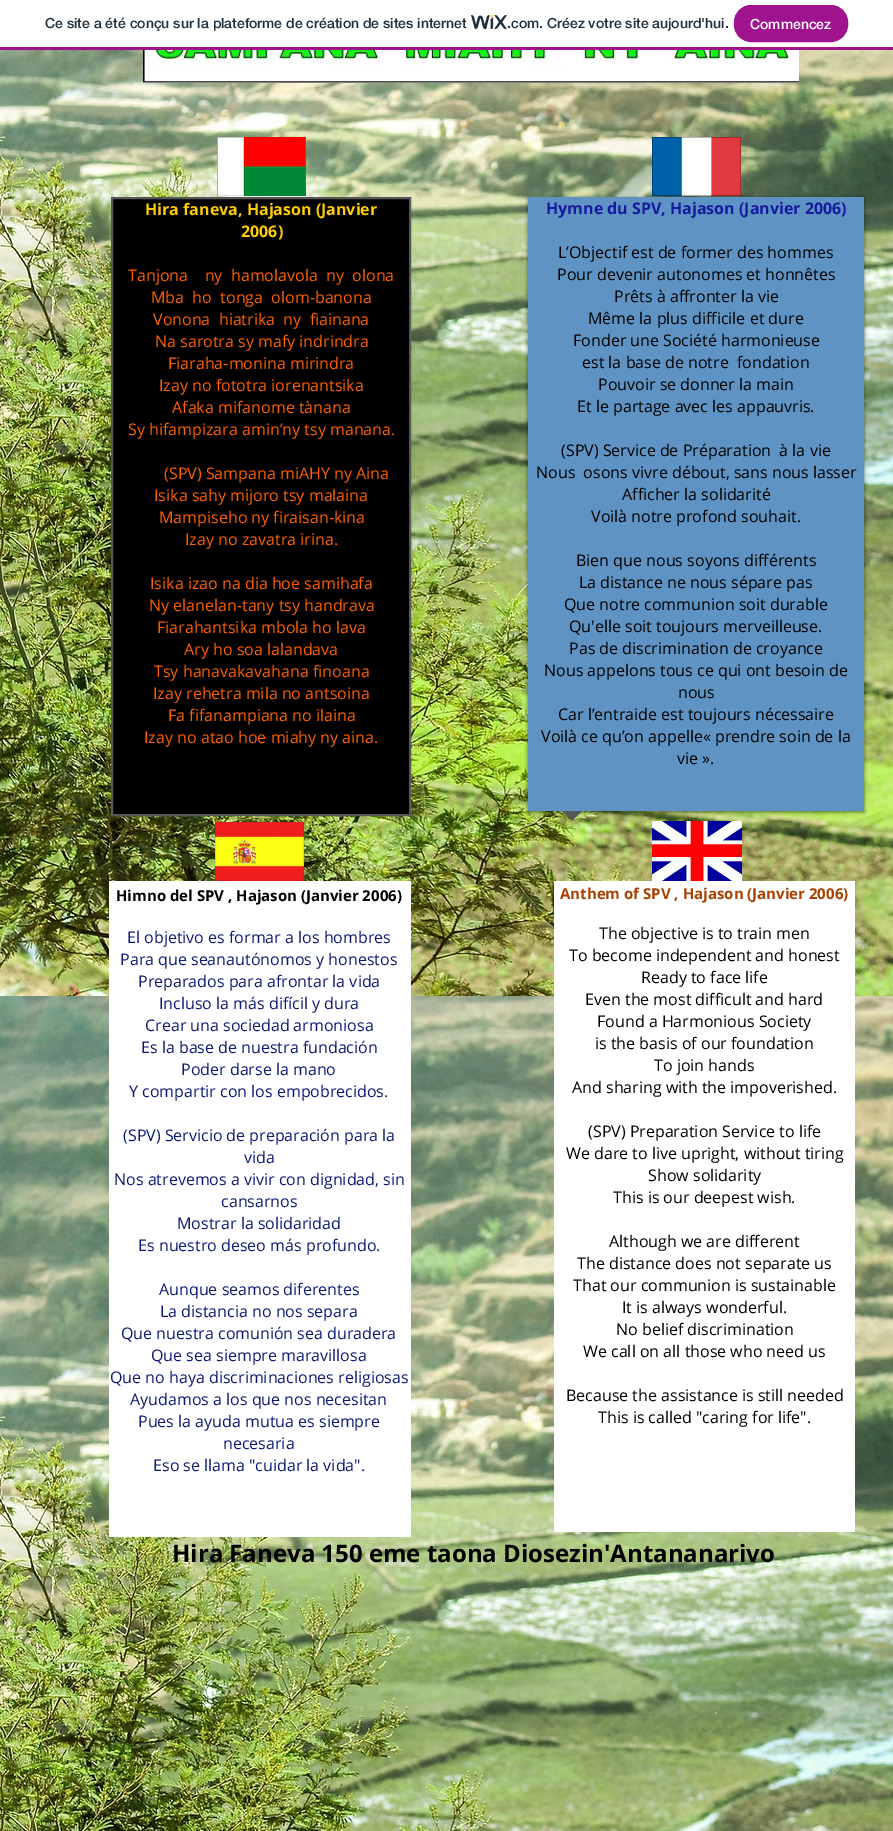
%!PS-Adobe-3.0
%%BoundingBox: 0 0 893 1831
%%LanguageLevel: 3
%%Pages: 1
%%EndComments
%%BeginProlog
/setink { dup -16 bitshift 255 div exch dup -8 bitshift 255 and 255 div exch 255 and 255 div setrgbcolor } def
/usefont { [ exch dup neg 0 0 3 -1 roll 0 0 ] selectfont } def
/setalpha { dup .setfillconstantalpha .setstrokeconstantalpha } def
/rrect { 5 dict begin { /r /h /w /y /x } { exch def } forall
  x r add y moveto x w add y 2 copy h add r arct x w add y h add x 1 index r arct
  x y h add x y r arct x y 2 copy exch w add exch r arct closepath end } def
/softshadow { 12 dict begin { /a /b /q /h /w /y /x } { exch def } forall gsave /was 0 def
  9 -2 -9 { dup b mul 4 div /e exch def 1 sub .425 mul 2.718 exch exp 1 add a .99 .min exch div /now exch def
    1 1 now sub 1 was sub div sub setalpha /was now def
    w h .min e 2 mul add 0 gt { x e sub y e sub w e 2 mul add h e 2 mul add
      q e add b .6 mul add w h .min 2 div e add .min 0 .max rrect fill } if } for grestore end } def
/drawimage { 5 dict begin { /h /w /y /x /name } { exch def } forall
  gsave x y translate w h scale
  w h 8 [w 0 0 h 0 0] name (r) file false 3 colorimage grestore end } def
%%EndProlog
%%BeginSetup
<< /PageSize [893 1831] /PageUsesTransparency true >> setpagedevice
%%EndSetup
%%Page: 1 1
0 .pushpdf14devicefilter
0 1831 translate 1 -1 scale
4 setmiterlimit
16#FFFFFF setink
0 0 893 1831 rectfill
16#A0138E setink
0 47 893 3 rectfill
/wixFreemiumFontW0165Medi-Medium 14 usefont
16#20303C setink
45 28 moveto (Ce site a été conçu sur la plateforme de création de sites internet) show
(img1.raw) 471 15 36 15 drawimage
507 28 moveto (.com. Créez votre site aujourd'hui.) show
16#A0138E setink
734.5 5.5 113 36 16.5 rrect gsave fill grestore
stroke
16#FFFFFF setink
750 29 moveto (Commencez) show
(img2.raw) 0 50 893 1781 drawimage
(img3.raw) 143 50 656 33 drawimage
(img4.raw) 217 137 89 59 drawimage
(img5.raw) 652 137 89 59 drawimage
16#000000 setink
112 198 moveto 410 198 lineto 410 815 lineto 112 815 lineto closepath gsave fill grestore
16#575757 setink
2 setlinewidth
stroke
/OpenSans-Bold 16 usefont
16#FFCB05 setink
145 215 moveto (Hira faneva, Hajason \(Janvier) show
241 237 moveto (2006\)) show
/OpenSans-Regular 16 usefont
16#FC6000 setink
[
    [(Tanjona    ny  hamolavola  ny  olona) 128 281]
    [(Mba  ho  tonga  olom-banona) 151 303]
    [(Vonona  hiatrika  ny  fiainana) 153 325]
    [(Na sarotra sy mafy indrindra) 155 347]
    [(Fiaraha-monina mirindra) 168 369]
    [(Izay no fototra iorenantsika) 159 391]
    [(Afaka mifanome tànana) 172 413]
    [(Sy hifampizara amin’ny tsy manana.) 128 435]
    [(\(SPV\) Sampana miAHY ny Aina) 164 479]
    [(Isika sahy mijoro tsy malaina) 154 501]
    [(Mampiseho ny firaisan-kina) 159 523]
    [(Izay no zavatra irina.) 185 545]
    [(Isika izao na dia hoe samihafa) 150 589]
    [(Ny elanelan-tany tsy handrava) 149 611]
    [(Fiarahantsika mbola ho lava) 157 633]
    [(Ary ho soa lalandava) 184 655]
    [(Tsy hanavakavahana finoana) 154 677]
    [(Izay rehetra mila no antsoina) 153 699]
    [(Fa fifanampiana no ilaina) 168 721]
    [(Izay no atao hoe miahy ny aina.) 144 743]
] { aload pop moveto show } forall
16#000000 setink
528 198 336 614 0 2 0.6 softshadow
16#5E93C4 setink
528 197 336 614 rectfill
/OpenSans-Bold 16 usefont
16#17199E setink
546 214 moveto (Hymne du SPV, Hajason \(Janvier 2006\)) show
/OpenSans-Regular 16 usefont
16#000000 setink
[
    [(L’Objectif est de former des hommes) 558 258]
    [(Pour devenir autonomes et honnêtes) 557 280]
    [(Prêts à affronter la vie) 614 302]
    [(Même la plus difficile et dure) 588 324]
    [(Fonder une Société harmonieuse) 573 346]
    [(est la base de notre  fondation) 582 368]
    [(Pouvoir se donner la main) 598 390]
    [(Et le partage avec les appauvris.) 577 412]
    [(\(SPV\) Service de Préparation  à la vie) 561 456]
    [(Nous  osons vivre débout, sans nous lasser) 536 478]
    [(Afficher la solidarité) 622 500]
    [(Voilà notre profond souhait.) 591 522]
    [(Bien que nous soyons différents) 576 566]
    [(La distance ne nous sépare pas) 579 588]
    [(Que notre communion soit durable) 564 610]
    [(Qu'elle soit toujours merveilleuse.) 569 632]
    [(Pas de discrimination de croyance) 569 654]
    [(Nous appelons tous ce qui ont besoin de) 544 676]
    [(nous) 678 698]
    [(Car l’entraide est toujours nécessaire) 558 720]
    [(Voilà ce qu’on appelle« prendre soin de la) 541 742]
    [(vie ».) 677 764]
] { aload pop moveto show } forall
16#575757 setink
562 811 moveto 582 811 lineto 572 821 lineto closepath fill
(img6.raw) 215 822 89 59 drawimage
(img7.raw) 652 821 90 60 drawimage
16#FFFFFF setink
109 881 302 656 rectfill
/OpenSans-Bold 15 usefont
16#000000 setink
116 901 moveto (Himno del SPV , Hajason \(Janvier 2006\)) show
/OpenSans-Regular 16 usefont
16#0C1A75 setink
[
    [(El objetivo es formar a los hombres) 127 943]
    [(Para que seanautónomos y honestos) 120 965]
    [(Preparados para afrontar la vida) 138 987]
    [(Incluso la más difícil y dura) 159 1009]
    [(Crear una sociedad armoniosa) 145 1031]
    [(Es la base de nuestra fundación) 141 1053]
    [(Poder darse la mano) 181 1075]
    [(Y compartir con los empobrecidos.) 129 1097]
    [(\(SPV\) Servicio de preparación para la) 123 1141]
    [(vida) 244 1163]
    [(Nos atrevemos a vivir con dignidad, sin) 114 1185]
    [(cansarnos) 221 1207]
    [(Mostrar la solidaridad) 177 1229]
    [(Es nuestro deseo más profundo.) 138 1251]
    [(Aunque seamos diferentes) 159 1295]
    [(La distancia no nos separa) 160 1317]
    [(Que nuestra comunión sea duradera) 121 1339]
    [(Que sea siempre maravillosa) 151 1361]
    [(Que no haya discriminaciones religiosas) 110 1383]
    [(Ayudamos a los que nos necesitan) 130 1405]
    [(Pues la ayuda mutua es siempre) 138 1427]
    [(necesaria) 223 1449]
    [(Eso se llama "cuidar la vida".) 153 1471]
] { aload pop moveto show } forall
16#FFFFFF setink
554 881 301 651 rectfill
/OpenSans-Bold 15 usefont
16#A84000 setink
560 899 moveto (Anthem of SPV , Hajason \(Janvier 2006\)) show
/OpenSans-Regular 16 usefont
16#000000 setink
[
    [(The objective is to train men) 599 939]
    [(To become independent and honest) 569 961]
    [(Ready to face life) 641 983]
    [(Even the most difficult and hard) 585 1005]
    [(Found a Harmonious Society) 597 1027]
    [(is the basis of our foundation) 595 1049]
    [(To join hands) 654 1071]
    [(And sharing with the impoverished.) 572 1093]
    [(\(SPV\) Preparation Service to life) 588 1137]
    [(We dare to live upright, without tiring) 566 1159]
    [(Show solidarity) 648 1181]
    [(This is our deepest wish.) 613 1203]
    [(Although we are different) 609 1247]
    [(The distance does not separate us) 577 1269]
    [(That our communion is sustainable) 573 1291]
    [(It is always wonderful.) 622 1313]
    [(No belief discrimination) 616 1335]
    [(We call on all those who need us) 583 1357]
    [(Because the assistance is still needed) 566 1401]
    [(This is called "caring for life".) 598 1423]
] { aload pop moveto show } forall
/OpenSans-Bold 24 usefont
172 1562 moveto (Hira Faneva 150 eme taona Diosezin'Antananarivo) show
.poppdf14devicefilter showpage
%%EOF
